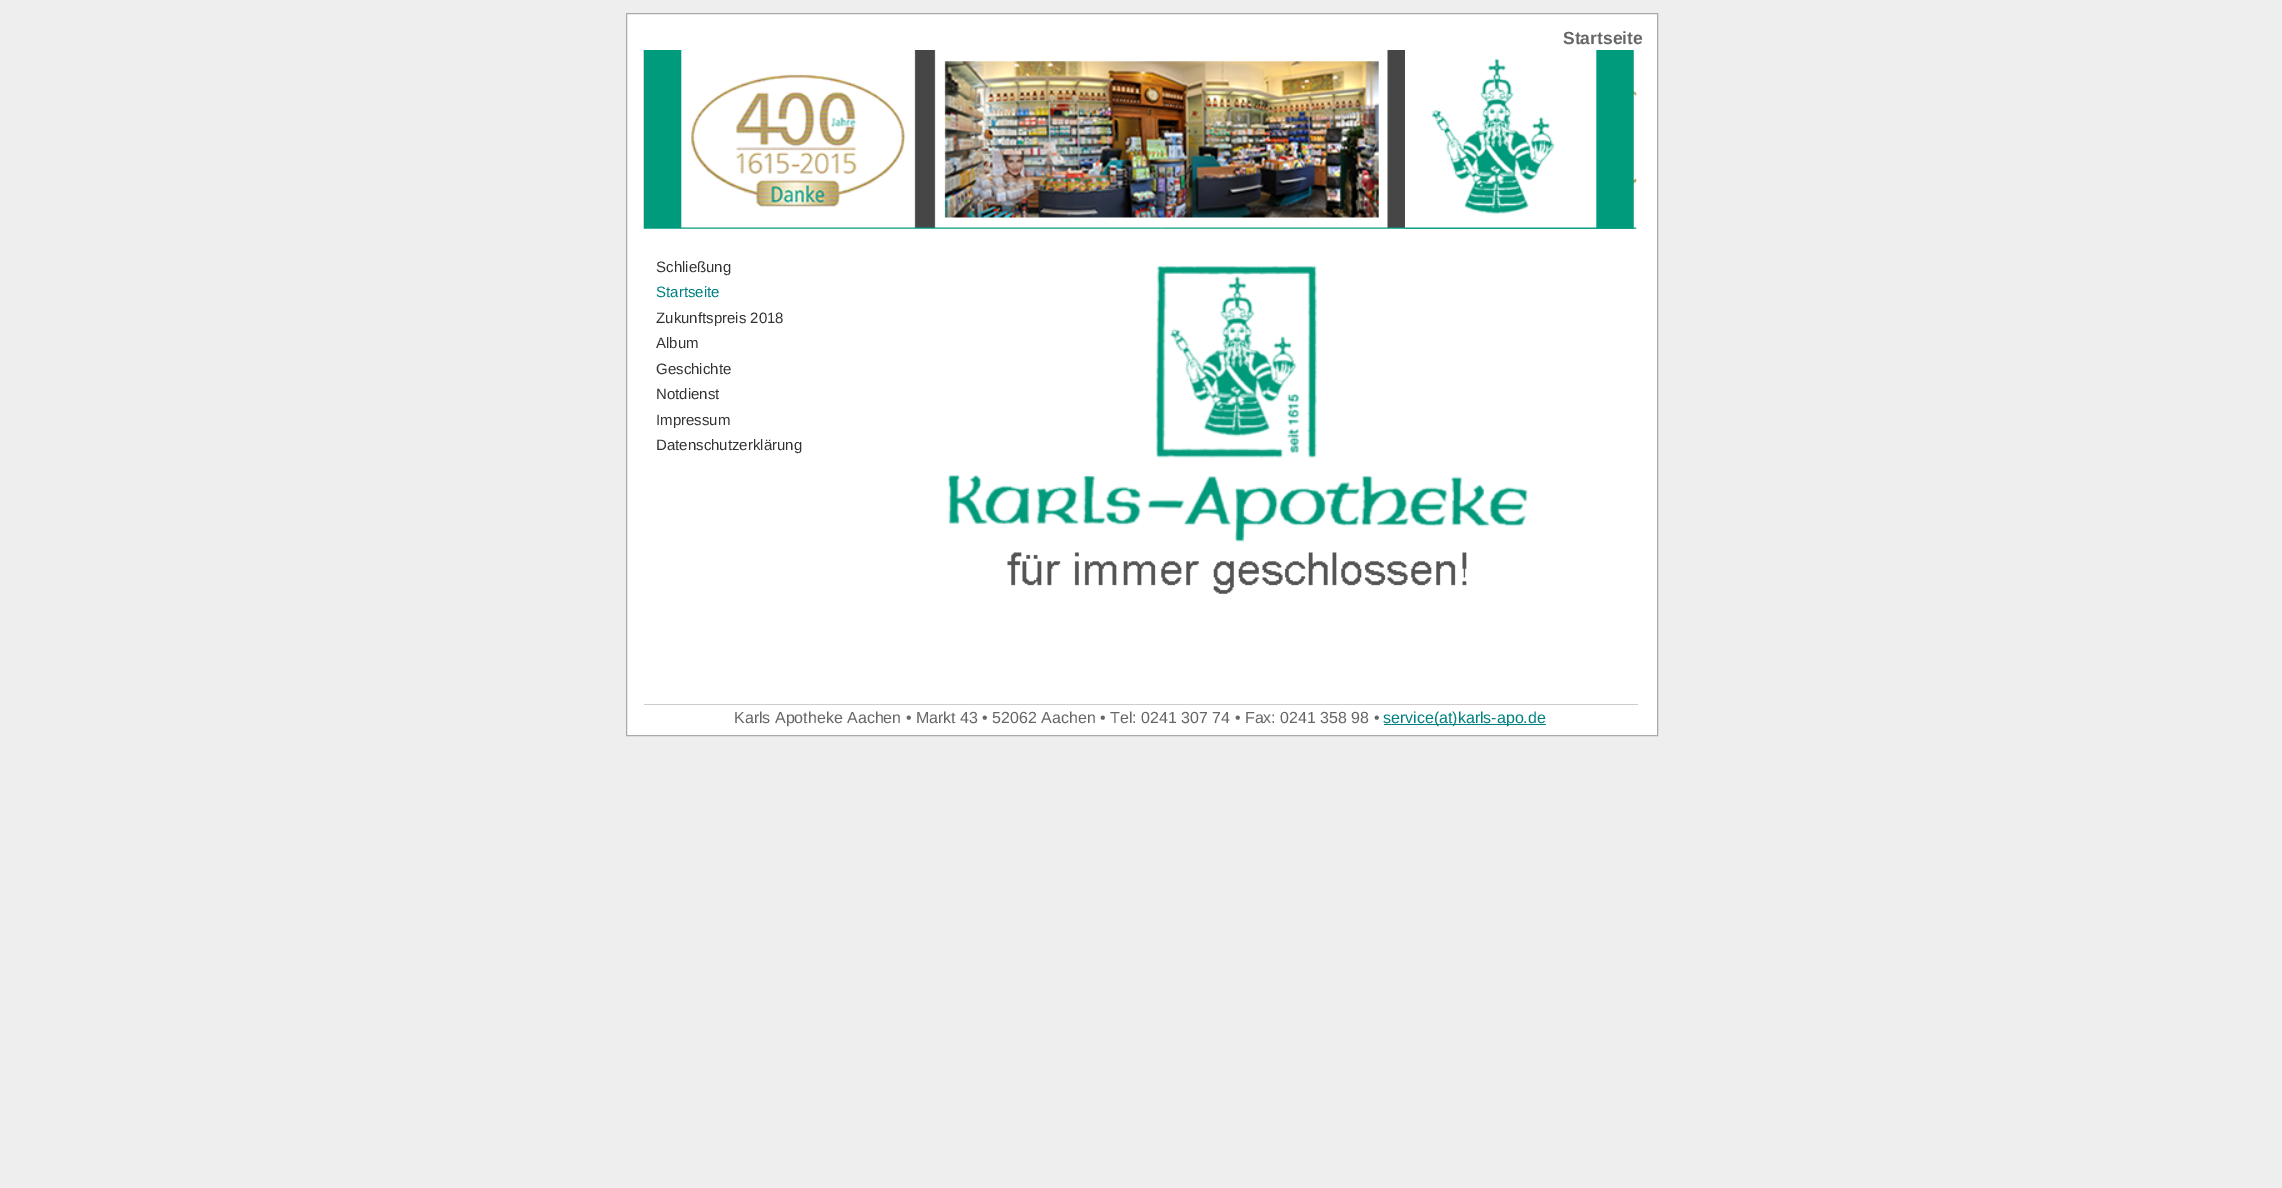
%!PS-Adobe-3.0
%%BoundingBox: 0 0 2282 1188
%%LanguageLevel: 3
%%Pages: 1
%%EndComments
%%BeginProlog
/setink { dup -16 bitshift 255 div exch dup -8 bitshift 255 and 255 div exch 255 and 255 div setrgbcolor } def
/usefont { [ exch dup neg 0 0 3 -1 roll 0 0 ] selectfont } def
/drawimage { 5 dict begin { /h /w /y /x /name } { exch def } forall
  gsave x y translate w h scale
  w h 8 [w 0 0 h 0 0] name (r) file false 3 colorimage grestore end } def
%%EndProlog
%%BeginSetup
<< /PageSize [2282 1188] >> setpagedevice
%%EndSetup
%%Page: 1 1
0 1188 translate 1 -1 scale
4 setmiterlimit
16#EEEEEE setink
0 0 2282 1188 rectfill
16#FFFFFF setink
626.5 13.5 moveto 1657.5 13.5 lineto 1657.5 735.5 lineto 626.5 735.5 lineto closepath gsave fill grestore
16#AAAAAA setink
stroke
/LiberationSans-Bold 17.5 usefont
16#666666 setink
1563 44 moveto (Startseite) show
(img1.raw) 643 50 994 179 drawimage
(img2.raw) 1405 50 229 179 drawimage
/LiberationSans-Regular 15 usefont
16#333333 setink
656 272 moveto (Schließung) show
16#008080 setink
656 297 moveto (Startseite) show
16#333333 setink
[
    [(Zukunftspreis 2018) 656 323]
    [(Album) 656 348]
    [(Geschichte) 656 374]
    [(Notdienst) 656 399]
    [(Impressum) 656 425]
    [(Datenschutzerklärung) 656 450]
] { aload pop moveto show } forall
(img3.raw) 947 266 581 328 drawimage
16#CCCCCC setink
644 704 994 1 rectfill
/LiberationSans-Regular 16 usefont
16#666666 setink
734 723 moveto (Karls Apotheke Aachen • Markt 43 • 52062 Aachen • Tel: 0241 307 74 • Fax: 0241 358 98 •) show
16#008080 setink
1384 724 162 1 rectfill
1383 723 moveto (service\(at\)karls-apo.de) show
showpage
%%EOF
